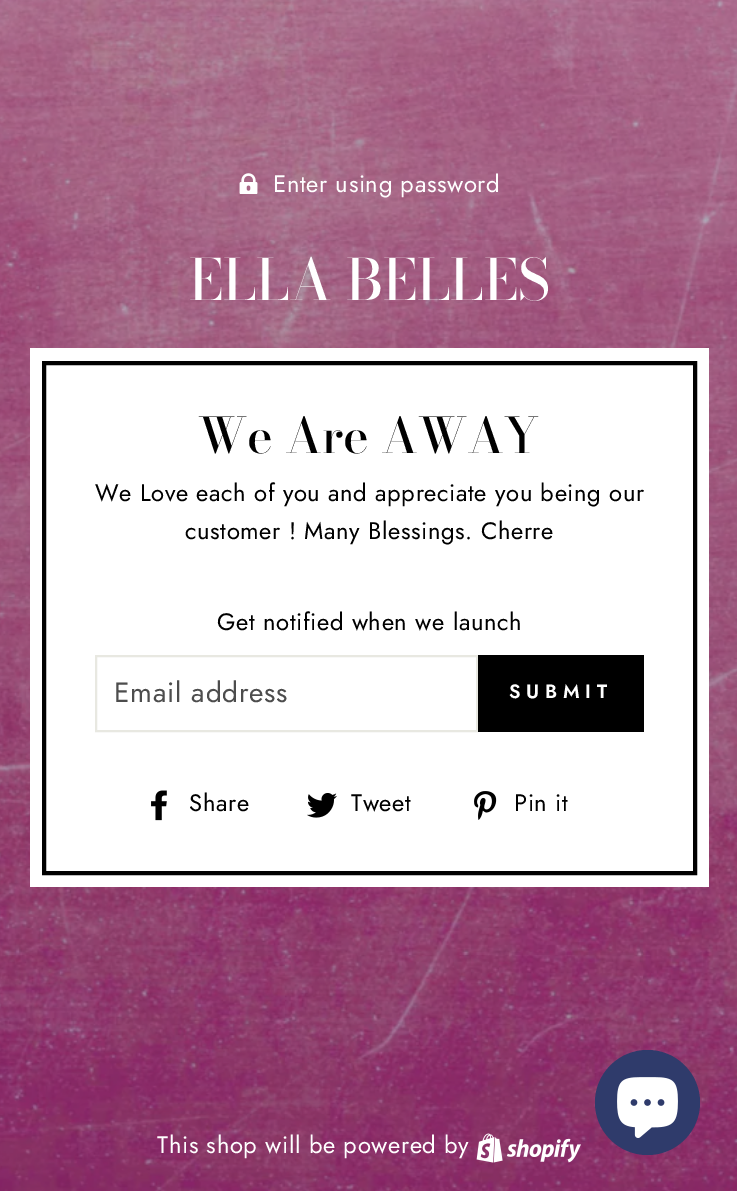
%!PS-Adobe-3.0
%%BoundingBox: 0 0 737 1191
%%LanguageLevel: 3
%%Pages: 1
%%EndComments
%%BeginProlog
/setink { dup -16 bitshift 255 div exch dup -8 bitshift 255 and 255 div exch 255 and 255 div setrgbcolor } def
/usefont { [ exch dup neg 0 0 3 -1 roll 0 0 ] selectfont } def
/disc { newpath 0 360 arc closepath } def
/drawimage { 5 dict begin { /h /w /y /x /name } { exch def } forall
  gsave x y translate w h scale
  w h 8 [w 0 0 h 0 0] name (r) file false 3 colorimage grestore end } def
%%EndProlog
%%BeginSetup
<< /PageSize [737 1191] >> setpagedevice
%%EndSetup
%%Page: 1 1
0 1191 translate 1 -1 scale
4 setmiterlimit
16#FFFFFF setink
0 0 737 1191 rectfill
(img1.raw) 0 0 737 1191 drawimage
(img2.raw) 239 173 19 21 drawimage
/Jost-Regular 23.8 usefont
273 192 moveto 0.6 0 (Enter using password) ashow
/BodoniModa-Medium 56.5 usefont
189 300 moveto (ELLA BELLES) show
30 348 679 539 rectfill
16#000000 setink
4 setlinewidth
44 363 651 510 rectstroke
/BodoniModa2-Medium 48.5 usefont
198 453 moveto (We Are AWAY) show
/Jost-Regular 23.8 usefont
95 501 moveto 0.6 0 (We Love each of you and appreciate you being our) ashow
185 539 moveto 0.6 0 (customer ! Many Blessings. Cherre) ashow
217 630 moveto 0.6 0 (Get notified when we launch) ashow
16#E8E8E1 setink
2 setlinewidth
96 656 381 75 rectstroke
/Jost-Regular 28 usefont
16#4D4D4D setink
114 702 moveto 0.75 0 (Email address) ashow
16#000000 setink
478 655 166 77 rectfill
/Jost-SemiBold 19.25 usefont
16#FFFFFF setink
509 698 moveto 5.75 0 (SUBMIT) ashow
(img3.raw) 151 790 16 31 drawimage
/Jost-Regular 23.8 usefont
16#000000 setink
189 811 moveto 0.6 0 (Share) ashow
(img4.raw) 307 793 30 25 drawimage
351 811 moveto 0.6 0 (Tweet) ashow
(img5.raw) 474 791 23 29 drawimage
514 811 moveto 0.6 0 (Pin it) ashow
16#FFFFFF setink
157 1153 moveto 0.6 0 (This shop will be powered by) ashow
(img6.raw) 476 1133 105 30 drawimage
16#2F3B6B setink
647.5 1102.5 52.5 disc fill
(img7.raw) 617 1077 61 61 drawimage
showpage
%%EOF
